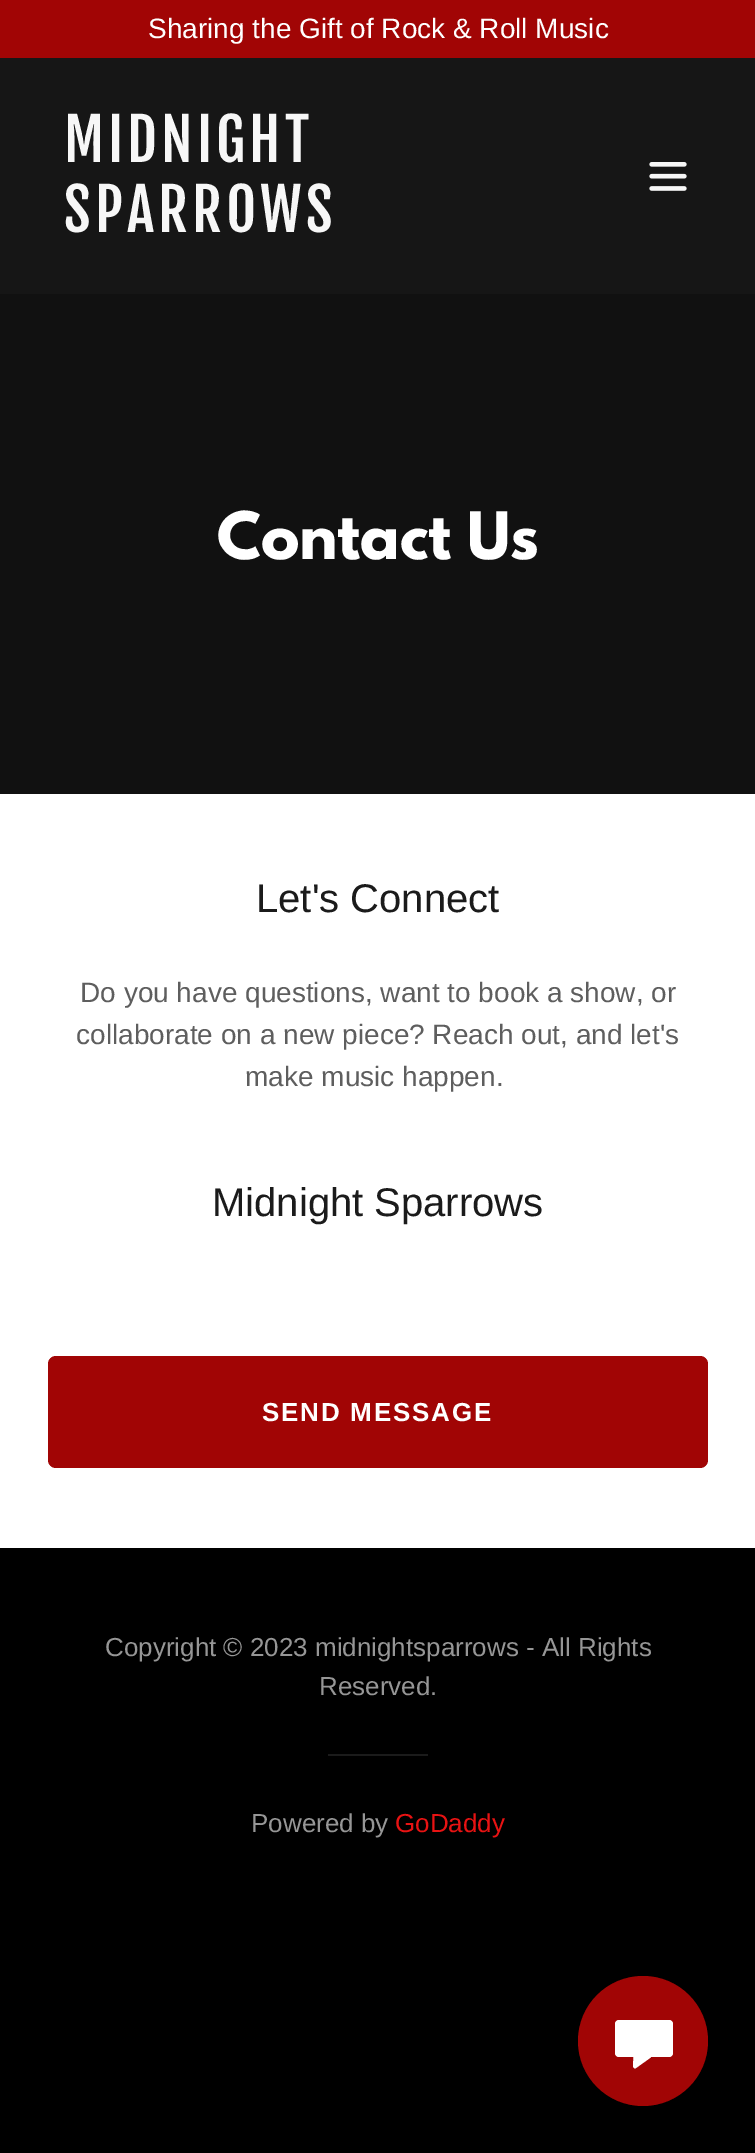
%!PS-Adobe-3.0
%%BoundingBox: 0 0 755 2153
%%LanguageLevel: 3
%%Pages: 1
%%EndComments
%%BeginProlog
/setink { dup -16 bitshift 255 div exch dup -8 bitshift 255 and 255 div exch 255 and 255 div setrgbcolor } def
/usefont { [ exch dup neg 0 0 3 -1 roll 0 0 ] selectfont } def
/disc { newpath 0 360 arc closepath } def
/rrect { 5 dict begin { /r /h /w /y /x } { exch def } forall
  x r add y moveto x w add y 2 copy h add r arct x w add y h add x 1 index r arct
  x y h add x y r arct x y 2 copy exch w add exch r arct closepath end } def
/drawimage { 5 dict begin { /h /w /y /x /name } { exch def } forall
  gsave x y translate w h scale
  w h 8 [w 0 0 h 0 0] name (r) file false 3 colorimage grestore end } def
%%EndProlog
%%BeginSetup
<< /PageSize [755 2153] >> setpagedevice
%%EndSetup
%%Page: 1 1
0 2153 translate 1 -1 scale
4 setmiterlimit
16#000000 setink
0 0 755 2153 rectfill
16#161616 setink
0 58 755 236 rectfill
16#A10505 setink
0 0 755 58 rectfill
/LiberationSans-Regular 28 usefont
16#FFFFFF setink
148 38 moveto (Sharing the Gift of Rock & Roll Music) show
/FjallaOne-Regular 58 usefont
16#F7F7F7 setink
64 162 moveto 4 0 (MIDNIGHT) ashow
64 232 moveto 4 0 (SPARROWS) ashow
(img1.raw) 649 162 38 29 drawimage
16#111111 setink
0 294 755 500 rectfill
/LeagueSpartan-Bold 58 usefont
16#FFFFFF setink
217 559 moveto (Contact Us) show
0 794 755 754 rectfill
/LiberationSans-Regular 40 usefont
16#1B1B1B setink
256 912 moveto (Let's Connect) show
/LiberationSans-Regular 28 usefont
16#5E5E5E setink
[
    [(Do you have questions, want to book a show, or) 80 1002]
    [(collaborate on a new piece? Reach out, and let's) 76 1044]
    [(make music happen.) 245 1086]
] { aload pop moveto show } forall
/LiberationSans-Regular 40 usefont
16#1B1B1B setink
212 1216 moveto (Midnight Sparrows) show
16#A10505 setink
48 1356 660 112 8 rrect fill
/LiberationSans-Bold 26 usefont
16#FFFFFF setink
262 1421 moveto 1.8 0 (SEND MESSAGE) ashow
/LiberationSans-Regular 26 usefont
16#969696 setink
105 1656 moveto (Copyright © 2023 midnightsparrows - All Rights) show
319 1695 moveto (Reserved.) show
16#1B1B1B setink
328 1754 100 2 rectfill
16#969696 setink
251 1832 moveto (Powered by) show
16#E81313 setink
395 1832 moveto (GoDaddy) show
16#A10505 setink
643 2041 65 disc fill
16#FFFFFF setink
615 2020 58 37 4 rrect fill
633 2066 moveto 633.5 2056 lineto 633.5 2055 634.5 2054 635.5 2054 curveto 649 2054 lineto 651 2054 652 2057 650 2058 curveto 636 2068 lineto 635.5 2068.5 634.5 2068.5 634 2068 curveto 633.5 2067.5 633 2067 633 2066 curveto closepath fill
showpage
%%EOF
